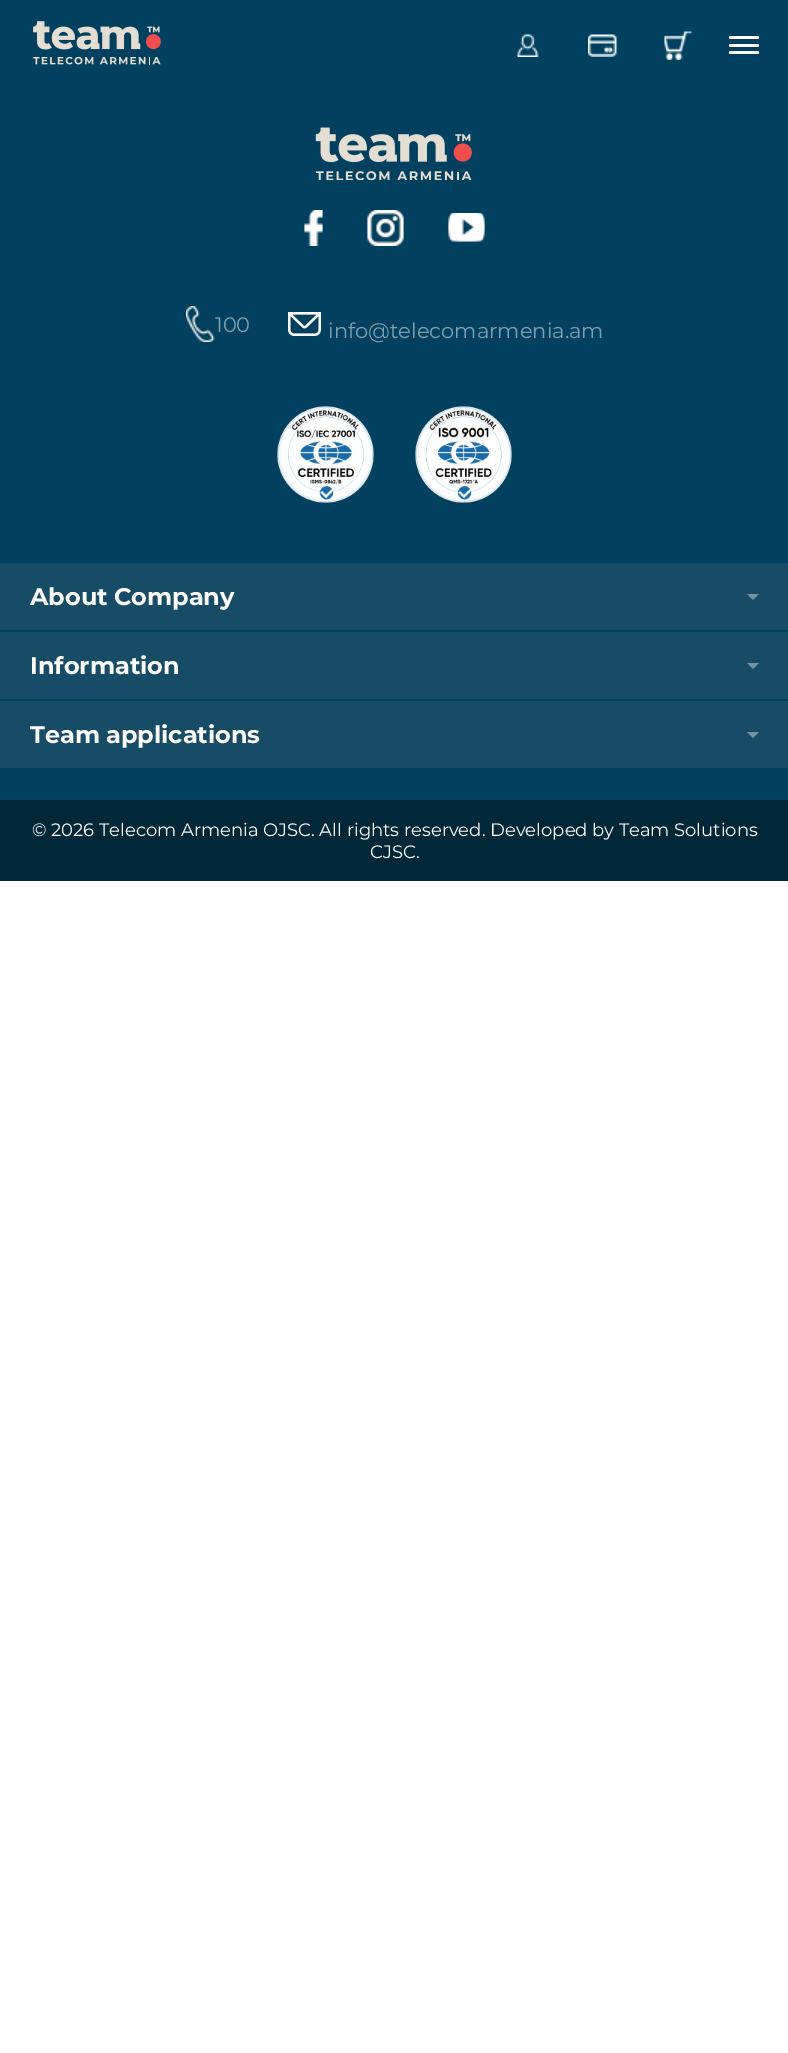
%!PS-Adobe-3.0
%%BoundingBox: 0 0 788 2053
%%LanguageLevel: 3
%%Pages: 1
%%EndComments
%%BeginProlog
/setink { dup -16 bitshift 255 div exch dup -8 bitshift 255 and 255 div exch 255 and 255 div setrgbcolor } def
/usefont { [ exch dup neg 0 0 3 -1 roll 0 0 ] selectfont } def
/rrect { 5 dict begin { /r /h /w /y /x } { exch def } forall
  x r add y moveto x w add y 2 copy h add r arct x w add y h add x 1 index r arct
  x y h add x y r arct x y 2 copy exch w add exch r arct closepath end } def
/drawimage { 5 dict begin { /h /w /y /x /name } { exch def } forall
  gsave x y translate w h scale
  w h 8 [w 0 0 h 0 0] name (r) file false 3 colorimage grestore end } def
%%EndProlog
%%BeginSetup
<< /PageSize [788 2053] >> setpagedevice
%%EndSetup
%%Page: 1 1
0 2053 translate 1 -1 scale
4 setmiterlimit
16#FFFFFF setink
0 0 788 2053 rectfill
16#01415F setink
0 0 788 800 rectfill
(img1.raw) 33 21 128 44 drawimage
(img2.raw) 588 34 29 23 drawimage
(img3.raw) 517 34 22 23 drawimage
(img4.raw) 664 31 28 29 drawimage
16#FFFFFF setink
729 36 30 3 1.5 rrect fill
729 44 30 3 1.5 rrect fill
729 51 30 3 1.5 rrect fill
(img5.raw) 315 127 157 53 drawimage
(img6.raw) 304 210 19 36 drawimage
(img7.raw) 304 210 19 36 drawimage
(img8.raw) 367 210 37 36 drawimage
(img9.raw) 367 210 37 36 drawimage
(img10.raw) 448 213 37 29 drawimage
(img11.raw) 448 213 37 29 drawimage
(img12.raw) 186 306 29 36 drawimage
(img13.raw) 186 306 29 36 drawimage
/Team-Regular 21 usefont
16#80A0AF setink
215 332 moveto (100) show
(img14.raw) 288 312 33 24 drawimage
328 338 moveto (info@telecomarmenia.am) show
(img15.raw) 277 406 97 97 drawimage
(img16.raw) 415 406 97 97 drawimage
16#174C66 setink
0 563 788 67 rectfill
/Team-Bold 24 usefont
16#FFFFFF setink
30 605 moveto (About Company) show
16#7494A3 setink
747 594 moveto 759 594 lineto 753 600 lineto closepath fill
16#174C66 setink
0 632 788 67 rectfill
16#FFFFFF setink
30 674 moveto (Information) show
16#7494A3 setink
747 663 moveto 759 663 lineto 753 669 lineto closepath fill
16#174C66 setink
0 701 788 67 rectfill
16#FFFFFF setink
30 743 moveto (Team applications) show
16#7494A3 setink
747 732 moveto 759 732 lineto 753 738 lineto closepath fill
16#022739 setink
0 800 788 81 rectfill
/Team-Regular 18 usefont
16#FFFFFF setink
32 836 moveto (© 2026 Telecom Armenia OJSC. All rights reserved. Developed by Team Solutions) show
370 858 moveto (CJSC.) show
showpage
%%EOF
